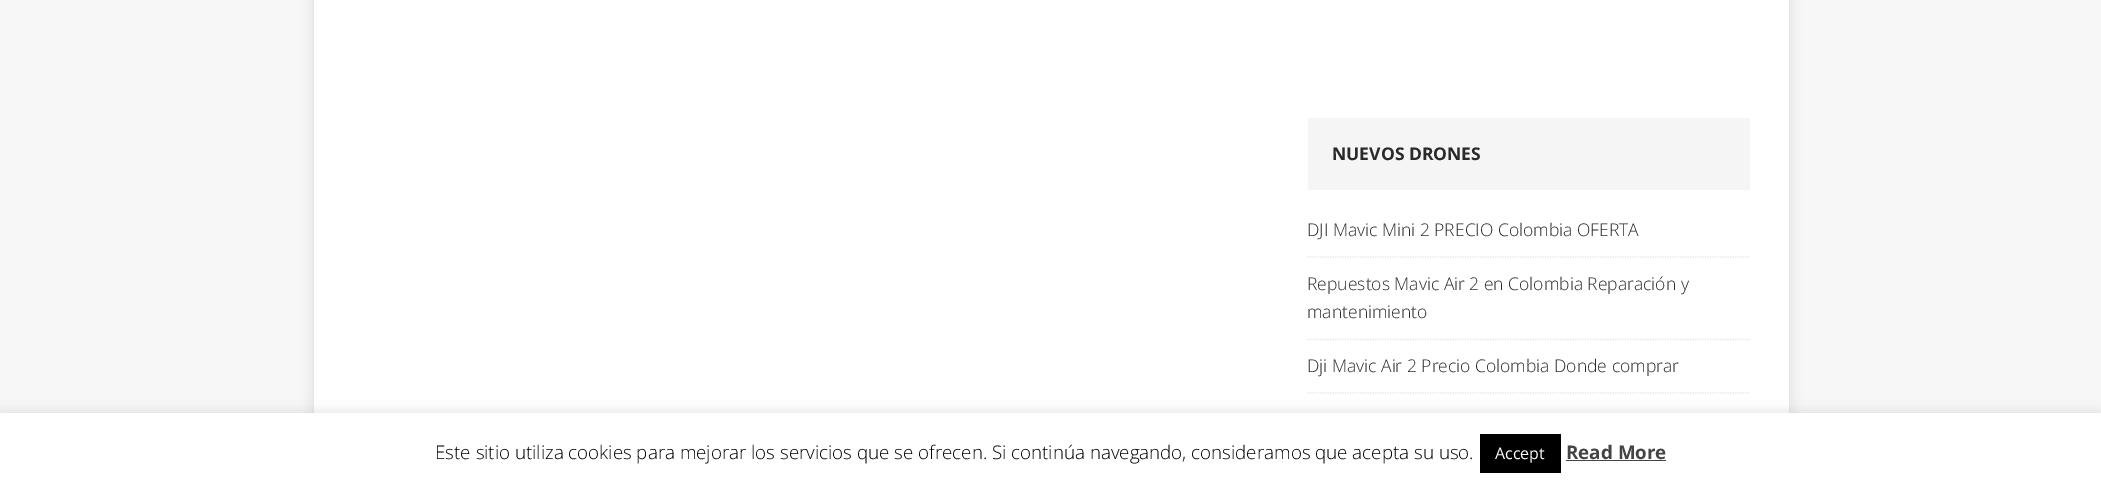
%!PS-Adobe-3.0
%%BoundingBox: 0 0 2101 487
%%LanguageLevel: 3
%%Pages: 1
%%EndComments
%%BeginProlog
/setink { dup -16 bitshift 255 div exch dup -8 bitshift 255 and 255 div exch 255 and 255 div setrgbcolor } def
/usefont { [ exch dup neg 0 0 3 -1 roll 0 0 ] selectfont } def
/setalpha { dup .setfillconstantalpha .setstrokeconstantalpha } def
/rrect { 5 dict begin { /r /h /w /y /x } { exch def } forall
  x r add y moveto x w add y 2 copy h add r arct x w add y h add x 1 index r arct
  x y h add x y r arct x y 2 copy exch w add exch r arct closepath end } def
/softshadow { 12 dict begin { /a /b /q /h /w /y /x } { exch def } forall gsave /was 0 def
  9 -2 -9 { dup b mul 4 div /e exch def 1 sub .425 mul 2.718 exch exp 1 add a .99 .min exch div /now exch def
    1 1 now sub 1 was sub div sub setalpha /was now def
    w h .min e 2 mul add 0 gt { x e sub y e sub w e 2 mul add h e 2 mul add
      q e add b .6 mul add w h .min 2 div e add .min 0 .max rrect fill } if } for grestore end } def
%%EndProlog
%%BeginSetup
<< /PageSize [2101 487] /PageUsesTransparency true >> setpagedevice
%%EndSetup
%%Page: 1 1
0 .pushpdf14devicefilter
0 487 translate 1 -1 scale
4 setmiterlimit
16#F7F7F7 setink
0 0 2101 487 rectfill
16#323232 setink
314 -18 1475 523 0 6 0.17 softshadow
16#FFFFFF setink
314 0 1475 413 rectfill
16#F5F5F5 setink
1308 118 442 72 rectfill
/OpenSans-Bold 17.5 usefont
16#2A2A2A setink
1332 160 moveto (NUEVOS DRONES) show
16#E5E5E5 setink
1.2 setlinewidth
[1.25 1.25] 0 setdash
1307.5 257 moveto 1750 257 lineto stroke
/OpenSans-Light 17.5 usefont
16#2A2A2A setink
1307 236 moveto (DJI Mavic Mini 2 PRECIO Colombia OFERTA) show
16#E5E5E5 setink
1307.5 339.5 moveto 1750 339.5 lineto stroke
16#2A2A2A setink
1307 290 moveto (Repuestos Mavic Air 2 en Colombia Reparación y) show
1307 318 moveto (mantenimiento) show
16#E5E5E5 setink
1307.5 393 moveto 1750 393 lineto stroke
16#2A2A2A setink
1307 372 moveto (Dji Mavic Air 2 Precio Colombia Donde comprar) show
16#ACABAB setink
0 411 2101 75 0 6 0.3 softshadow
16#FFFFFF setink
0 413 2101 74 rectfill
/OpenSans-Light 18.75 usefont
16#000000 setink
435 459 moveto (Este sitio utiliza cookies para mejorar los servicios que se ofrecen. Si continúa navegando, consideramos que acepta su uso.) show
1480 434 81 39 rectfill
/OpenSans-Regular 16 usefont
16#FFFFFF setink
1495 459 moveto (Accept) show
/OpenSans-Bold 18.75 usefont
16#444444 setink
1566 459 moveto (Read More) show
1566 460 100 1 rectfill
.poppdf14devicefilter showpage
%%EOF
